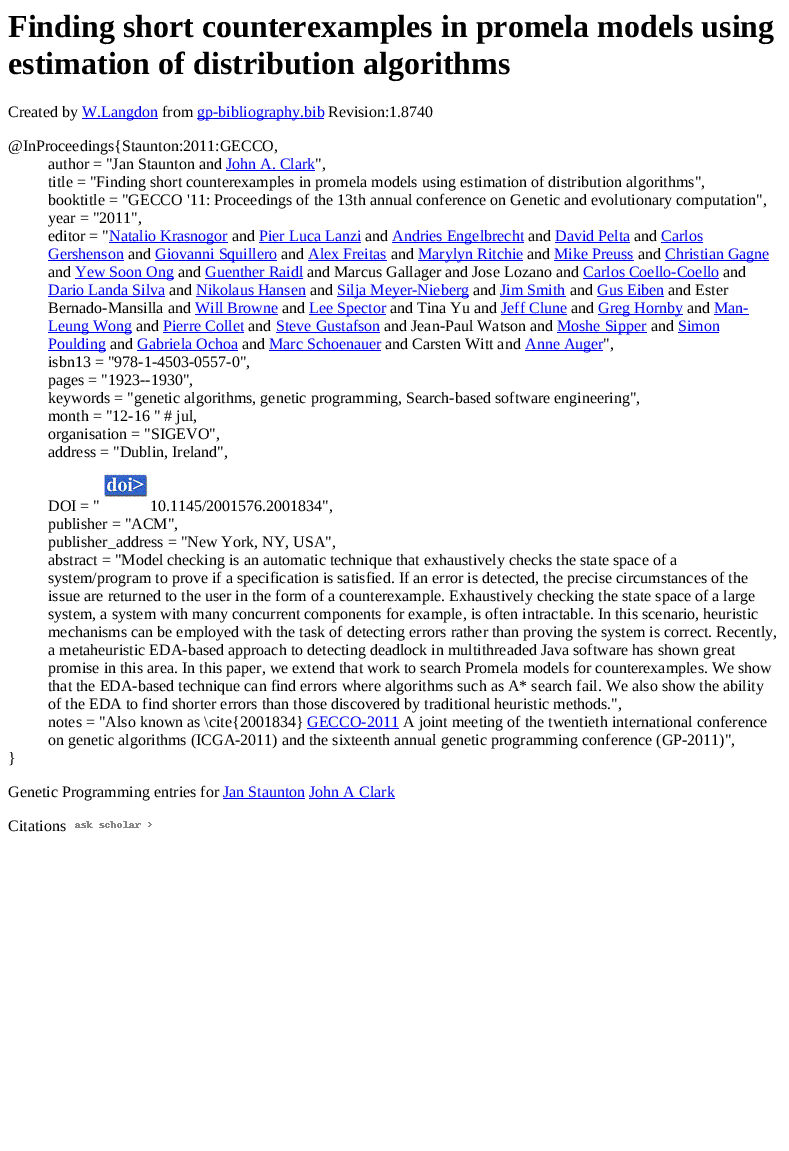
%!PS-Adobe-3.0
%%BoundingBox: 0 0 789 1151
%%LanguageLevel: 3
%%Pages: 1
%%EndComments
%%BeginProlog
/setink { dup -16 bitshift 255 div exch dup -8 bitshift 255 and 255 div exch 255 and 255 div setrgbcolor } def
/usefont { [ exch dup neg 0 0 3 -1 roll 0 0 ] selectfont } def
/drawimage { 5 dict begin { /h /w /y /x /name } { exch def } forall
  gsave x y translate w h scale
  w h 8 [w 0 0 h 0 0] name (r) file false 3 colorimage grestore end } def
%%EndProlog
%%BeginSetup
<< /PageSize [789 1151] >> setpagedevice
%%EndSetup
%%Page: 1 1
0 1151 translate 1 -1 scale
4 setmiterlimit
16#FFFFFF setink
0 0 789 1151 rectfill
/LiberationSerif-Bold 32 usefont
16#000000 setink
8 37 moveto (Finding short counterexamples in promela models using) show
8 74 moveto (estimation of distribution algorithms) show
/LiberationSerif-Regular 16 usefont
8 117 moveto (Created by) show
16#0000EE setink
82 118 76 1 rectfill
82 117 moveto (W.Langdon) show
16#000000 setink
162 117 moveto (from) show
16#0000EE setink
197 118 127 1 rectfill
197 117 moveto (gp-bibliography.bib) show
16#000000 setink
[
    [(Revision:1.8740) 328 117]
    [(@InProceedings{Staunton:2011:GECCO,) 8 151]
    [(author = "Jan Staunton and) 48 169]
] { aload pop moveto show } forall
16#0000EE setink
226 169 moveto (John A. Clark) show
226 170 89 1 rectfill
16#000000 setink
[
    [(",) 315 169]
    [(title = "Finding short counterexamples in promela models using estimation of distribution algorithms",) 48 187]
    [(booktitle = "GECCO '11: Proceedings of the 13th annual conference on Genetic and evolutionary computation",) 48 205]
    [(year = "2011",) 48 223]
    [(editor = ") 48 241]
] { aload pop moveto show } forall
16#0000EE setink
109 242 119 1 rectfill
109 241 moveto (Natalio Krasnogor) show
16#000000 setink
232 241 moveto (and) show
16#0000EE setink
259 241 moveto (Pier Luca Lanzi) show
259 242 102 1 rectfill
16#000000 setink
365 241 moveto (and) show
16#0000EE setink
392 242 132 1 rectfill
392 241 moveto (Andries Engelbrecht) show
16#000000 setink
528 241 moveto (and) show
16#0000EE setink
555 241 moveto (David Pelta) show
555 242 75 1 rectfill
16#000000 setink
634 241 moveto (and) show
16#0000EE setink
661 241 moveto (Carlos) show
661 242 42 1 rectfill
48 259 moveto (Gershenson) show
48 260 76 1 rectfill
16#000000 setink
128 259 moveto (and) show
16#0000EE setink
155 260 122 1 rectfill
155 259 moveto (Giovanni Squillero) show
16#000000 setink
281 259 moveto (and) show
16#0000EE setink
308 259 moveto (Alex Freitas) show
308 260 79 1 rectfill
16#000000 setink
391 259 moveto (and) show
16#0000EE setink
418 260 105 1 rectfill
418 259 moveto (Marylyn Ritchie) show
16#000000 setink
527 259 moveto (and) show
16#0000EE setink
554 259 moveto (Mike Preuss) show
554 260 80 1 rectfill
16#000000 setink
638 259 moveto (and) show
16#0000EE setink
665 260 104 1 rectfill
665 259 moveto (Christian Gagne) show
16#000000 setink
48 277 moveto (and) show
16#0000EE setink
75 278 99 1 rectfill
75 277 moveto (Yew Soon Ong) show
16#000000 setink
178 277 moveto (and) show
16#0000EE setink
205 277 moveto (Guenther Raidl) show
205 278 98 1 rectfill
16#000000 setink
307 277 moveto (and Marcus Gallager and Jose Lozano and) show
16#0000EE setink
583 277 moveto (Carlos Coello-Coello) show
583 278 136 1 rectfill
16#000000 setink
723 277 moveto (and) show
16#0000EE setink
48 295 moveto (Dario Landa Silva) show
48 296 117 1 rectfill
16#000000 setink
169 295 moveto (and) show
16#0000EE setink
196 295 moveto (Nikolaus Hansen) show
196 296 110 1 rectfill
16#000000 setink
310 295 moveto (and) show
16#0000EE setink
337 296 132 1 rectfill
337 295 moveto (Silja Meyer-Nieberg) show
16#000000 setink
473 295 moveto (and) show
16#0000EE setink
500 295 moveto (Jim Smith) show
500 296 66 1 rectfill
16#000000 setink
570 295 moveto (and) show
16#0000EE setink
597 295 moveto (Gus Eiben) show
597 296 67 1 rectfill
16#000000 setink
668 295 moveto (and Ester) show
48 313 moveto (Bernado-Mansilla and) show
16#0000EE setink
195 313 moveto (Will Browne) show
195 314 83 1 rectfill
16#000000 setink
282 313 moveto (and) show
16#0000EE setink
309 314 77 1 rectfill
309 313 moveto (Lee Spector) show
16#000000 setink
390 313 moveto (and Tina Yu and) show
16#0000EE setink
501 313 moveto (Jeff Clune) show
501 314 66 1 rectfill
16#000000 setink
571 313 moveto (and) show
16#0000EE setink
598 314 85 1 rectfill
598 313 moveto (Greg Hornby) show
16#000000 setink
687 313 moveto (and) show
16#0000EE setink
714 313 moveto (Man-) show
714 314 35 1 rectfill
48 332 84 1 rectfill
48 331 moveto (Leung Wong) show
16#000000 setink
136 331 moveto (and) show
16#0000EE setink
163 331 moveto (Pierre Collet) show
163 332 81 1 rectfill
16#000000 setink
248 331 moveto (and) show
16#0000EE setink
276 331 moveto (Steve Gustafson) show
276 332 104 1 rectfill
16#000000 setink
384 331 moveto (and Jean-Paul Watson and) show
16#0000EE setink
557 332 90 1 rectfill
557 331 moveto (Moshe Sipper) show
16#000000 setink
651 331 moveto (and) show
16#0000EE setink
678 331 moveto (Simon) show
678 332 41 1 rectfill
48 350 58 1 rectfill
48 349 moveto (Poulding) show
16#000000 setink
110 349 moveto (and) show
16#0000EE setink
137 349 moveto (Gabriela Ochoa) show
137 350 101 1 rectfill
16#000000 setink
242 349 moveto (and) show
16#0000EE setink
269 349 moveto (Marc Schoenauer) show
269 350 112 1 rectfill
16#000000 setink
385 349 moveto (and Carsten Witt and) show
16#0000EE setink
525 350 78 1 rectfill
525 349 moveto (Anne Auger) show
16#000000 setink
[
    [(",) 603 349]
    [(isbn13 = "978-1-4503-0557-0",) 48 367]
    [(pages = "1923--1930",) 48 385]
    [(keywords = "genetic algorithms, genetic programming, Search-based software engineering",) 48 403]
    [(month = "12-16 " # jul,) 48 421]
    [(organisation = "SIGEVO",) 48 439]
    [(address = "Dublin, Ireland",) 48 457]
] { aload pop moveto show } forall
(img1.raw) 104 474 44 23 drawimage
[
    [(DOI = ") 48 511]
    [(10.1145/2001576.2001834",) 150 511]
    [(publisher = "ACM",) 48 529]
    [(publisher_address = "New York, NY, USA",) 48 547]
    [(abstract = "Model checking is an automatic technique that exhaustively checks the state space of a) 48 565]
    [(system/program to prove if a specification is satisfied. If an error is detected, the precise circumstances of the) 48 583]
    [(issue are returned to the user in the form of a counterexample. Exhaustively checking the state space of a large) 48 601]
    [(system, a system with many concurrent components for example, is often intractable. In this scenario, heuristic) 48 619]
    [(mechanisms can be employed with the task of detecting errors rather than proving the system is correct. Recently,) 48 637]
    [(a metaheuristic EDA-based approach to detecting deadlock in multithreaded Java software has shown great) 48 655]
    [(promise in this area. In this paper, we extend that work to search Promela models for counterexamples. We show) 48 673]
    [(that the EDA-based technique can find errors where algorithms such as A* search fail. We also show the ability) 48 691]
    [(of the EDA to find shorter errors than those discovered by traditional heuristic methods.",) 48 709]
    [(notes = "Also known as \\cite{2001834}) 48 727]
] { aload pop moveto show } forall
16#0000EE setink
307 727 moveto (GECCO-2011) show
307 728 92 1 rectfill
16#000000 setink
[
    [(A joint meeting of the twentieth international conference) 403 727]
    [(on genetic algorithms \(ICGA-2011\) and the sixteenth annual genetic programming conference \(GP-2011\)",) 48 745]
    [(}) 8 763]
    [(Genetic Programming entries for) 8 797]
] { aload pop moveto show } forall
16#0000EE setink
223 797 moveto (Jan Staunton John A Clark) show
223 798 82 1 rectfill
309 798 86 1 rectfill
16#000000 setink
8 831 moveto (Citations) show
(img2.raw) 75 821 77 7 drawimage
showpage
%%EOF
